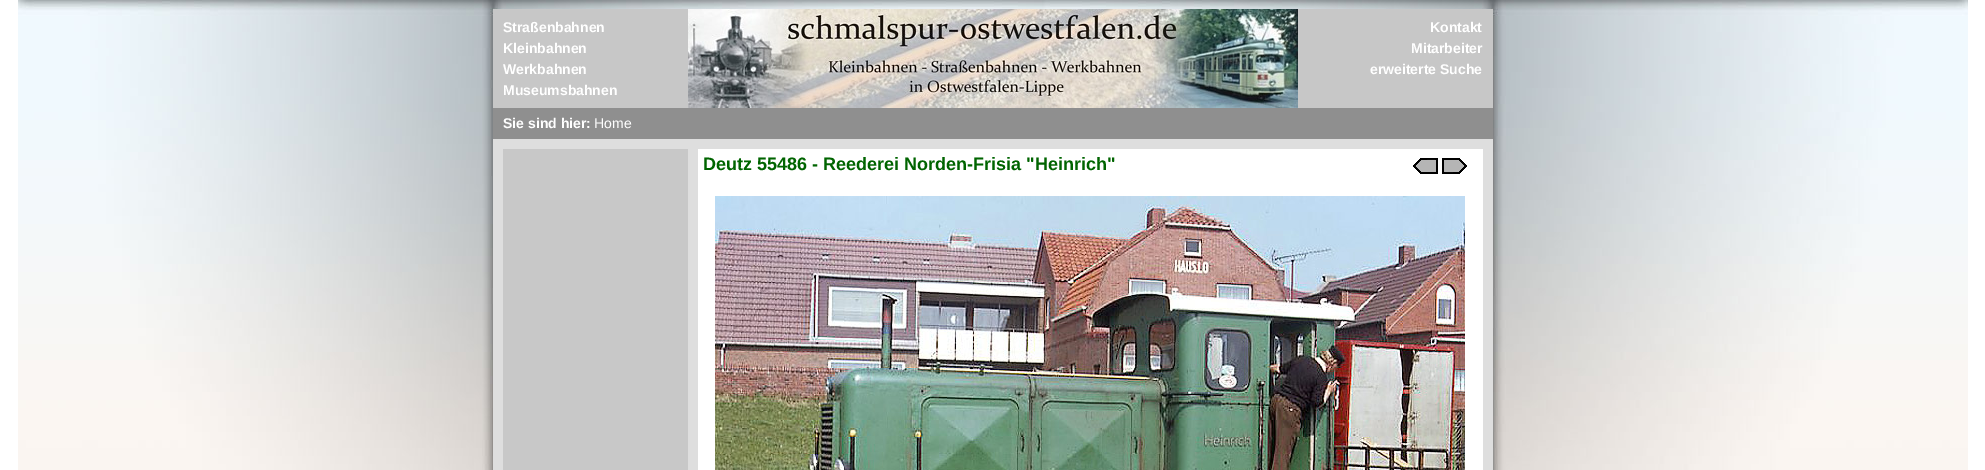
%!PS-Adobe-3.0
%%BoundingBox: 0 0 1985 470
%%LanguageLevel: 3
%%Pages: 1
%%EndComments
%%BeginProlog
/setink { dup -16 bitshift 255 div exch dup -8 bitshift 255 and 255 div exch 255 and 255 div setrgbcolor } def
/usefont { [ exch dup neg 0 0 3 -1 roll 0 0 ] selectfont } def
/drawimage { 5 dict begin { /h /w /y /x /name } { exch def } forall
  gsave x y translate w h scale
  w h 8 [w 0 0 h 0 0] name (r) file false 3 colorimage grestore end } def
%%EndProlog
%%BeginSetup
<< /PageSize [1985 470] >> setpagedevice
%%EndSetup
%%Page: 1 1
0 470 translate 1 -1 scale
4 setmiterlimit
16#FFFFFF setink
0 0 1985 470 rectfill
(img1.raw) 18 0 1950 470 drawimage
[
    [493 139 1000 331 16#DEDEDE]
    [493 108 1000 31 16#8F8F8F]
    [493 9 195 99 16#C7C7C7]
] { aload pop setink rectfill } forall
/LiberationSans-Bold 14 usefont
16#FFFFFF setink
[
    [(Straßenbahnen) 503 32]
    [(Kleinbahnen) 503 53]
    [(Werkbahnen) 503 74]
    [(Museumsbahnen) 503 95]
] { aload pop moveto show } forall
(img2.raw) 688 9 610 99 drawimage
16#C7C7C7 setink
1298 9 195 99 rectfill
16#FFFFFF setink
[
    [(Kontakt) 1430 32]
    [(Mitarbeiter) 1411 53]
    [(erweiterte Suche) 1370 74]
    [(Sie sind hier:) 503 128]
] { aload pop moveto show } forall
/LiberationSans-Regular 14 usefont
594 128 moveto (Home) show
16#C8C8C8 setink
503 149 185 321 rectfill
16#FFFFFF setink
698 149 785 321 rectfill
/LiberationSans-Bold 18 usefont
16#006400 setink
703 170 moveto (Deutz 55486 - Reederei Norden-Frisia "Heinrich") show
(img3.raw) 1413 158 25 16 drawimage
(img4.raw) 1442 158 25 16 drawimage
(img5.raw) 715 196 750 274 drawimage
showpage
%%EOF
